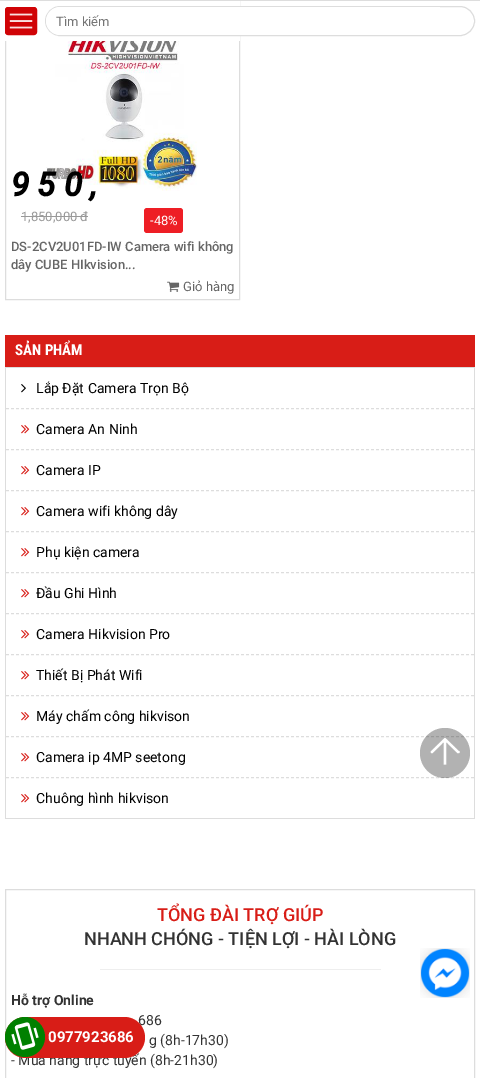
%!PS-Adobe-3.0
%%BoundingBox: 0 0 480 1078
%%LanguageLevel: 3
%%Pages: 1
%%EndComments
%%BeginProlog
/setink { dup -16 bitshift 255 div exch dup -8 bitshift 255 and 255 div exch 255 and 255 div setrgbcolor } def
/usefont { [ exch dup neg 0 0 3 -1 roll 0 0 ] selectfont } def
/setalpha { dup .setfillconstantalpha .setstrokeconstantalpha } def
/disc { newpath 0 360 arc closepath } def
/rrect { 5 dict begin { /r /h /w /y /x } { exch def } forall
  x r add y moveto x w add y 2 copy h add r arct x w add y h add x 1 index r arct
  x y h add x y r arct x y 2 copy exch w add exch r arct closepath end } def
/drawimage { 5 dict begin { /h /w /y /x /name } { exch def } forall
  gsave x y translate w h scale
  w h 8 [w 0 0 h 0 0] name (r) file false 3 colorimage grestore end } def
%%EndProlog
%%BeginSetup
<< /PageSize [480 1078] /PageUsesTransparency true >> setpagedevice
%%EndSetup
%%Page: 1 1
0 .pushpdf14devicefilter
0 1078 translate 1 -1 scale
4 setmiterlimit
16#FFFFFF setink
0 0 480 1078 rectfill
16#DDDDDD setink
5.5 -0.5 234 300 rectstroke
16#FFFFFF setink
5 1 235 40 rectfill
16#DDDDDD setink
0 0 480 1 rectfill
16#D00306 setink
5.5 7.5 31 27 2.5 rrect gsave fill grestore
stroke
(img1.raw) 9 13 24 16 drawimage
16#DDDDDD setink
45.5 6.5 429 29 14.5 rrect stroke
16#FFFFFF setink
60 7 moveto 440 7 lineto 440 35 lineto 60 35 lineto 52.5 35 46 28.5 46 21 curveto 46 13.5 52.5 7 60 7 curveto closepath fill
/Roboto-Regular 13 usefont
16#757575 setink
56 26 moveto (Tìm kiếm) show
(img2.raw) 46 41 152 150 drawimage
/Roboto-BoldItalic 33 usefont
16#000000 setink
11 196 moveto (9 5 0 ,) show
/Roboto-Regular 13 usefont
16#999999 setink
21 221 moveto (1,850,000 đ) show
21 216 67 1 rectfill
16#EE1E25 setink
144 208 39 25 3 rrect fill
16#FFFFFF setink
150 225 moveto (-48%) show
/Roboto-Medium 13 usefont
16#666666 setink
11 251 moveto (DS-2CV2U01FD-IW Camera wifi không) show
11 269 moveto (dây CUBE HIkvision...) show
(img3.raw) 167 281 13 11 drawimage
/Roboto-Regular 13 usefont
183 291 moveto (Giỏ hàng) show
16#D81D17 setink
5 335 470 32 rectfill
/RobotoCondensed-Bold 15 usefont
16#FFFFFF setink
15 355 moveto (SẢN PHẨM) show
16#DDDDDD setink
5 367 470 452 rectfill
16#FFFFFF setink
6 368 468 450 rectfill
(img4.raw) 21 384 5 9 drawimage
/Roboto-Regular 14 usefont
16#000000 setink
36 393 moveto (Lắp Đặt Camera Trọn Bộ) show
(img5.raw) 21 425 9 9 drawimage
16#DDDDDD setink
[3 2] 0 setdash
6 408.5 moveto 474 408.5 lineto stroke
16#000000 setink
36 434 moveto (Camera An Ninh) show
(img5.raw) 21 466 9 9 drawimage
16#DDDDDD setink
6 449.5 moveto 474 449.5 lineto stroke
16#000000 setink
36 475 moveto (Camera IP) show
(img5.raw) 21 507 9 9 drawimage
16#DDDDDD setink
6 490.5 moveto 474 490.5 lineto stroke
16#000000 setink
36 516 moveto (Camera wifi không dây) show
(img5.raw) 21 548 9 9 drawimage
16#DDDDDD setink
6 531.5 moveto 474 531.5 lineto stroke
16#000000 setink
36 557 moveto (Phụ kiện camera) show
(img5.raw) 21 589 9 9 drawimage
16#DDDDDD setink
6 572.5 moveto 474 572.5 lineto stroke
16#000000 setink
36 598 moveto (Đầu Ghi Hình) show
(img5.raw) 21 630 9 9 drawimage
16#DDDDDD setink
6 613.5 moveto 474 613.5 lineto stroke
16#000000 setink
36 639 moveto (Camera Hikvision Pro) show
(img5.raw) 21 671 9 9 drawimage
16#DDDDDD setink
6 654.5 moveto 474 654.5 lineto stroke
16#000000 setink
36 680 moveto (Thiết Bị Phát Wifi) show
(img5.raw) 21 712 9 9 drawimage
16#DDDDDD setink
6 695.5 moveto 474 695.5 lineto stroke
16#000000 setink
36 721 moveto (Máy chấm công hikvison) show
(img5.raw) 21 753 9 9 drawimage
16#DDDDDD setink
6 736.5 moveto 474 736.5 lineto stroke
16#000000 setink
36 762 moveto (Camera ip 4MP seetong) show
(img5.raw) 21 794 9 9 drawimage
16#DDDDDD setink
6 777.5 moveto 474 777.5 lineto stroke
16#000000 setink
36 803 moveto (Chuông hình hikvison) show
0.3 setalpha
445 753 25 disc fill
1 setalpha
(img6.raw) 430 738 30 27 drawimage
16#DDDDDD setink
[] 0 setdash
5.5 889.5 469 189 rectstroke
/Roboto-Medium 18 usefont
16#D81D17 setink
157 921 moveto (TỔNG ĐÀI TRỢ GIÚP) show
16#333333 setink
84 945 moveto (NHANH CHÓNG - TIỆN LỢI - HÀI LÒNG) show
16#EEEEEE setink
100 969 281 1 rectfill
/Roboto-Bold 14 usefont
16#333333 setink
11 1005 moveto (Hỗ trợ Online) show
/Roboto-Regular 14 usefont
[
    [(686) 138 1025]
    [(g \(8h-17h30\)) 149 1045]
    [(- Mua hàng trực tuyến \(8h-21h30\)) 11 1065]
] { aload pop moveto show } forall
(img7.raw) 420 948 50 50 drawimage
16#D81D17 setink
5 1017 140 41 20.5 rrect fill
16#008000 setink
25 1037 20 disc fill
(img8.raw) 11 1022 28 28 drawimage
/Roboto-Bold 15 usefont
16#FFFFFF setink
48 1042 moveto (0977923686) show
.poppdf14devicefilter showpage
%%EOF
